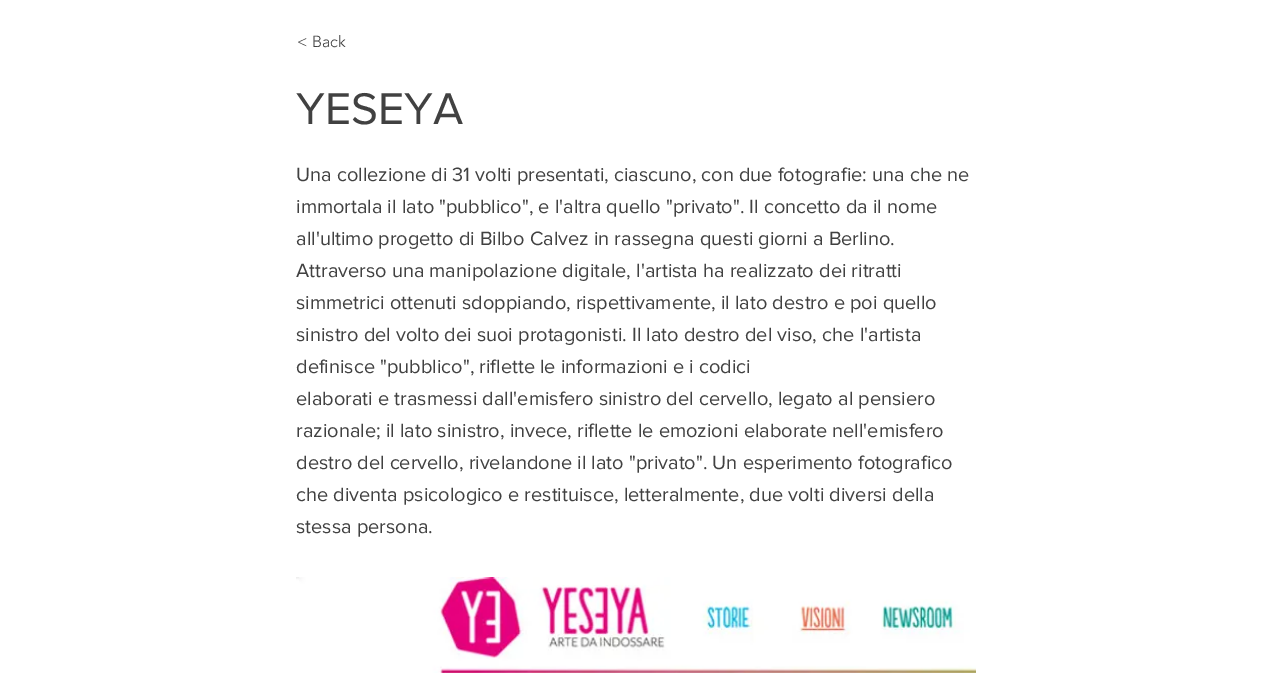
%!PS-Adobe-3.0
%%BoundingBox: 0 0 1271 673
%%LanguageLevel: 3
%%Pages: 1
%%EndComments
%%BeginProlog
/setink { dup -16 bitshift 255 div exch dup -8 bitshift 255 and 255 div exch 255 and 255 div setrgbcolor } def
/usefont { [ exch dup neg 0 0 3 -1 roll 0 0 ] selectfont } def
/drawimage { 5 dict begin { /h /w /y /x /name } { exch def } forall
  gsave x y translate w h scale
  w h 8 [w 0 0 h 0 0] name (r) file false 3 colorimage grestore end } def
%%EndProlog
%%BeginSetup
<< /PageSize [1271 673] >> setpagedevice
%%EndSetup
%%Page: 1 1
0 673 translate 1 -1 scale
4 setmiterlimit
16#FFFFFF setink
0 0 1271 673 rectfill
/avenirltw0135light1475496-Light 16 usefont
16#414141 setink
297 47 moveto (< Back) show
/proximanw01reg-Regular 46 usefont
296 124 moveto (YESEYA) show
/proximanw01reg-Regular 20 usefont
[
    [(Una collezione di 31 volti presentati, ciascuno, con due fotografie: una che ne) 296 181]
    [(immortala il lato "pubblico", e l'altra quello "privato". Il concetto da il nome) 296 213]
    [(all'ultimo progetto di Bilbo Calvez in rassegna questi giorni a Berlino.) 296 245]
    [(Attraverso una manipolazione digitale, l'artista ha realizzato dei ritratti) 296 277]
    [(simmetrici ottenuti sdoppiando, rispettivamente, il lato destro e poi quello) 296 309]
    [(sinistro del volto dei suoi protagonisti. Il lato destro del viso, che l'artista) 296 341]
    [(definisce "pubblico", riflette le informazioni e i codici) 296 373]
    [(elaborati e trasmessi dall'emisfero sinistro del cervello, legato al pensiero) 296 405]
    [(razionale; il lato sinistro, invece, riflette le emozioni elaborate nell'emisfero) 296 437]
    [(destro del cervello, rivelandone il lato "privato". Un esperimento fotografico) 296 469]
    [(che diventa psicologico e restituisce, letteralmente, due volti diversi della) 296 501]
    [(stessa persona.) 296 533]
] { aload pop moveto show } forall
(img1.raw) 296 577 680 96 drawimage
showpage
%%EOF
